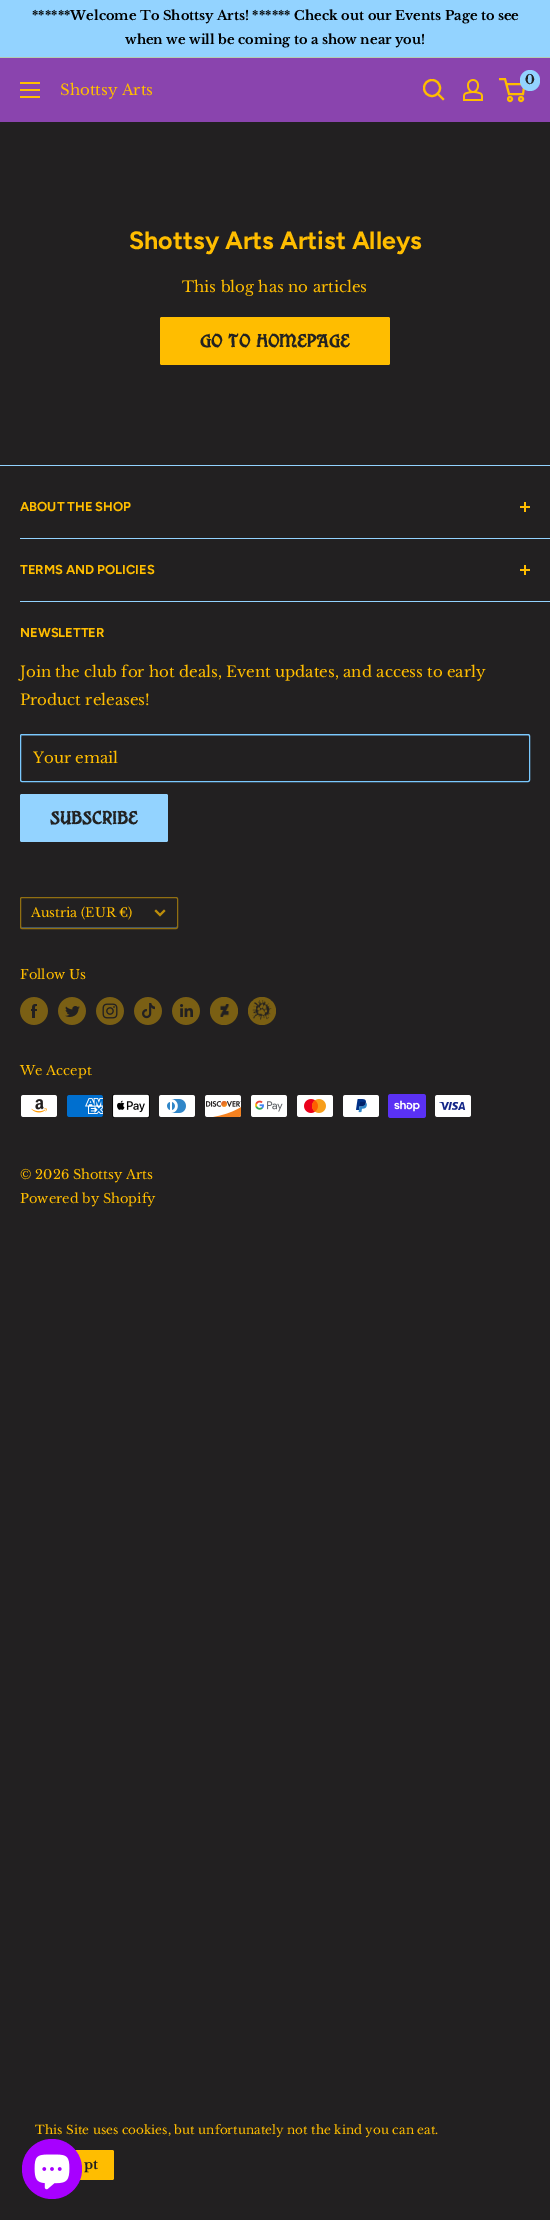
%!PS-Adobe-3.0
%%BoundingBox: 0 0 550 2220
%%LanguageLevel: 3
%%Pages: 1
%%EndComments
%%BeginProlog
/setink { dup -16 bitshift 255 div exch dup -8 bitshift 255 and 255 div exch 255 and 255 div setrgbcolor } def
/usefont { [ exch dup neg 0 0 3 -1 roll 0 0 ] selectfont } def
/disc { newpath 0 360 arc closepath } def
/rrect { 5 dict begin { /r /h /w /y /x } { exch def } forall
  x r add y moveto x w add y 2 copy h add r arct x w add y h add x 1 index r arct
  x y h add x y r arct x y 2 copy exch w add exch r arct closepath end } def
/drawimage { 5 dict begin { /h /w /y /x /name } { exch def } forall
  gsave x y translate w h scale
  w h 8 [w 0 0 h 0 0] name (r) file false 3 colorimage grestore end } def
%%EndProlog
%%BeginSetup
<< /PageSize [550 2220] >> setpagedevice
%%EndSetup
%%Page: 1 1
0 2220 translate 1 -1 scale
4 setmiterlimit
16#222021 setink
0 0 550 2220 rectfill
16#93D3FF setink
0 0 550 57 rectfill
16#B3CCB3 setink
0 57 550 1 rectfill
/LibreBaskerville-Bold 13 usefont
16#000000 setink
32 20 moveto (******Welcome To Shottsy Arts! ****** Check out our Events Page to see) show
125 44 moveto (when we will be coming to a show near you!) show
16#8A44AE setink
0 58 550 64 rectfill
16#FFBD00 setink
2.1 setlinewidth
2 setlinecap
443 99 moveto 437.5 93.5 lineto stroke
0 setlinecap
432 88 8 disc stroke
(img1.raw) 463 79 20 22 drawimage
2 setlinewidth
510 99 2 disc stroke
521 99 2 disc stroke
506.5 84 moveto 524.5 84 lineto 523 94 lineto 509 94 lineto 505 79 lineto 499 79 lineto stroke
16#93D3FF setink
520 70 20 21 10 rrect fill
16#222222 setink
525 84 moveto (0) show
(img2.raw) 20 82 20 16 drawimage
/LibreBaskerville-Regular 15 usefont
16#FFBD00 setink
60 95 moveto (Shottsy Arts) show
/Figtree-Bold 25 usefont
129 249 moveto (Shottsy Arts Artist Alleys) show
/LibreBaskerville-Regular 15 usefont
182 292 moveto (This blog has no articles) show
160 317 230 48 2 rrect fill
/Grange-Bold 16 usefont
16#222222 setink
200 347 moveto (Go to Homepage) show
16#93D3FF setink
0 465 550 1 rectfill
20 538 530 1 rectfill
/Figtree-Bold 13 usefont
16#FFBD00 setink
20 511 moveto (ABOUT THE SHOP) show
[
    [524 502 2 10 16#FFBD00]
    [520 506 10 2 16#FFBD00]
    [20 601 530 1 16#93D3FF]
] { aload pop setink rectfill } forall
16#FFBD00 setink
20 574 moveto (TERMS AND POLICIES) show
524 565 2 10 rectfill
520 569 10 2 rectfill
20 637 moveto (NEWSLETTER) show
/LibreBaskerville-Regular 15 usefont
20 677 moveto (Join the club for hot deals, Event updates, and access to early) show
20 705 moveto (Product releases!) show
16#3E4D59 setink
22 736 moveto 528 736 lineto 529 736 529 736 529 737 curveto 529 736 529 735 528 735 curveto 22 735 lineto 21 736 lineto 21 737 lineto 21 736 21 736 22 736 curveto closepath fill
16#7AC9FF setink
1 setlinewidth
20.5 734.5 509 47 1.5 rrect stroke
16#FFBD00 setink
33 763 moveto (Your email) show
16#93D3FF setink
20 794 148 48 2 rrect fill
/Grange-Bold 16 usefont
16#222222 setink
50 824 moveto (Subscribe) show
16#445664 setink
21 926 moveto 21 927 21 928 22 928 curveto 177 928 lineto 177 926 lineto 177 927 177 927 176 927 curveto 21 927 lineto closepath fill
16#916F11 setink
20.5 897.5 157 31 1.5 rrect stroke
/LibreBaskerville-Regular 12.75 usefont
16#FFBD00 setink
31 917 moveto (Austria \(EUR €\)) show
16#BD8E0A setink
2 setlinewidth
2 setlinecap
164 911 moveto 160 915 lineto 156 911 lineto stroke
/LibreBaskerville-Regular 13 usefont
16#FFBD00 setink
20 979 moveto (Follow Us) show
(img3.raw) 20 997 28 28 drawimage
(img4.raw) 58 997 28 28 drawimage
(img5.raw) 96 997 28 28 drawimage
(img6.raw) 134 997 28 28 drawimage
(img7.raw) 172 997 28 28 drawimage
16#7A5F13 setink
224 1011 14 disc fill
(img8.raw) 220 1004 10 13 drawimage
262 1011 14 disc fill
(img9.raw) 252 1000 20 20 drawimage
16#FFBD00 setink
20 1075 moveto (We Accept) show
(img10.raw) 21 1095 36 22 drawimage
(img11.raw) 67 1095 36 22 drawimage
(img12.raw) 112 1094 38 24 drawimage
(img13.raw) 159 1095 36 22 drawimage
(img14.raw) 205 1095 36 22 drawimage
(img15.raw) 251 1095 36 22 drawimage
(img16.raw) 297 1095 36 22 drawimage
(img17.raw) 343 1095 36 22 drawimage
(img18.raw) 388 1094 38 24 drawimage
(img19.raw) 435 1095 36 22 drawimage
20 1179 moveto (© 2026 Shottsy Arts) show
20 1203 moveto (Powered by Shopify) show
/LibreBaskerville-Regular 12 usefont
35 2134 moveto (This Site uses cookies, but unfortunately not the kind you can eat.) show
35 2150 79 30 2 rrect fill
/LibreBaskerville-Bold 13 usefont
16#222222 setink
84 2169 moveto (pt) show
16#A700FF setink
52 2169 30 disc fill
(img20.raw) 34 2154 36 36 drawimage
showpage
%%EOF
